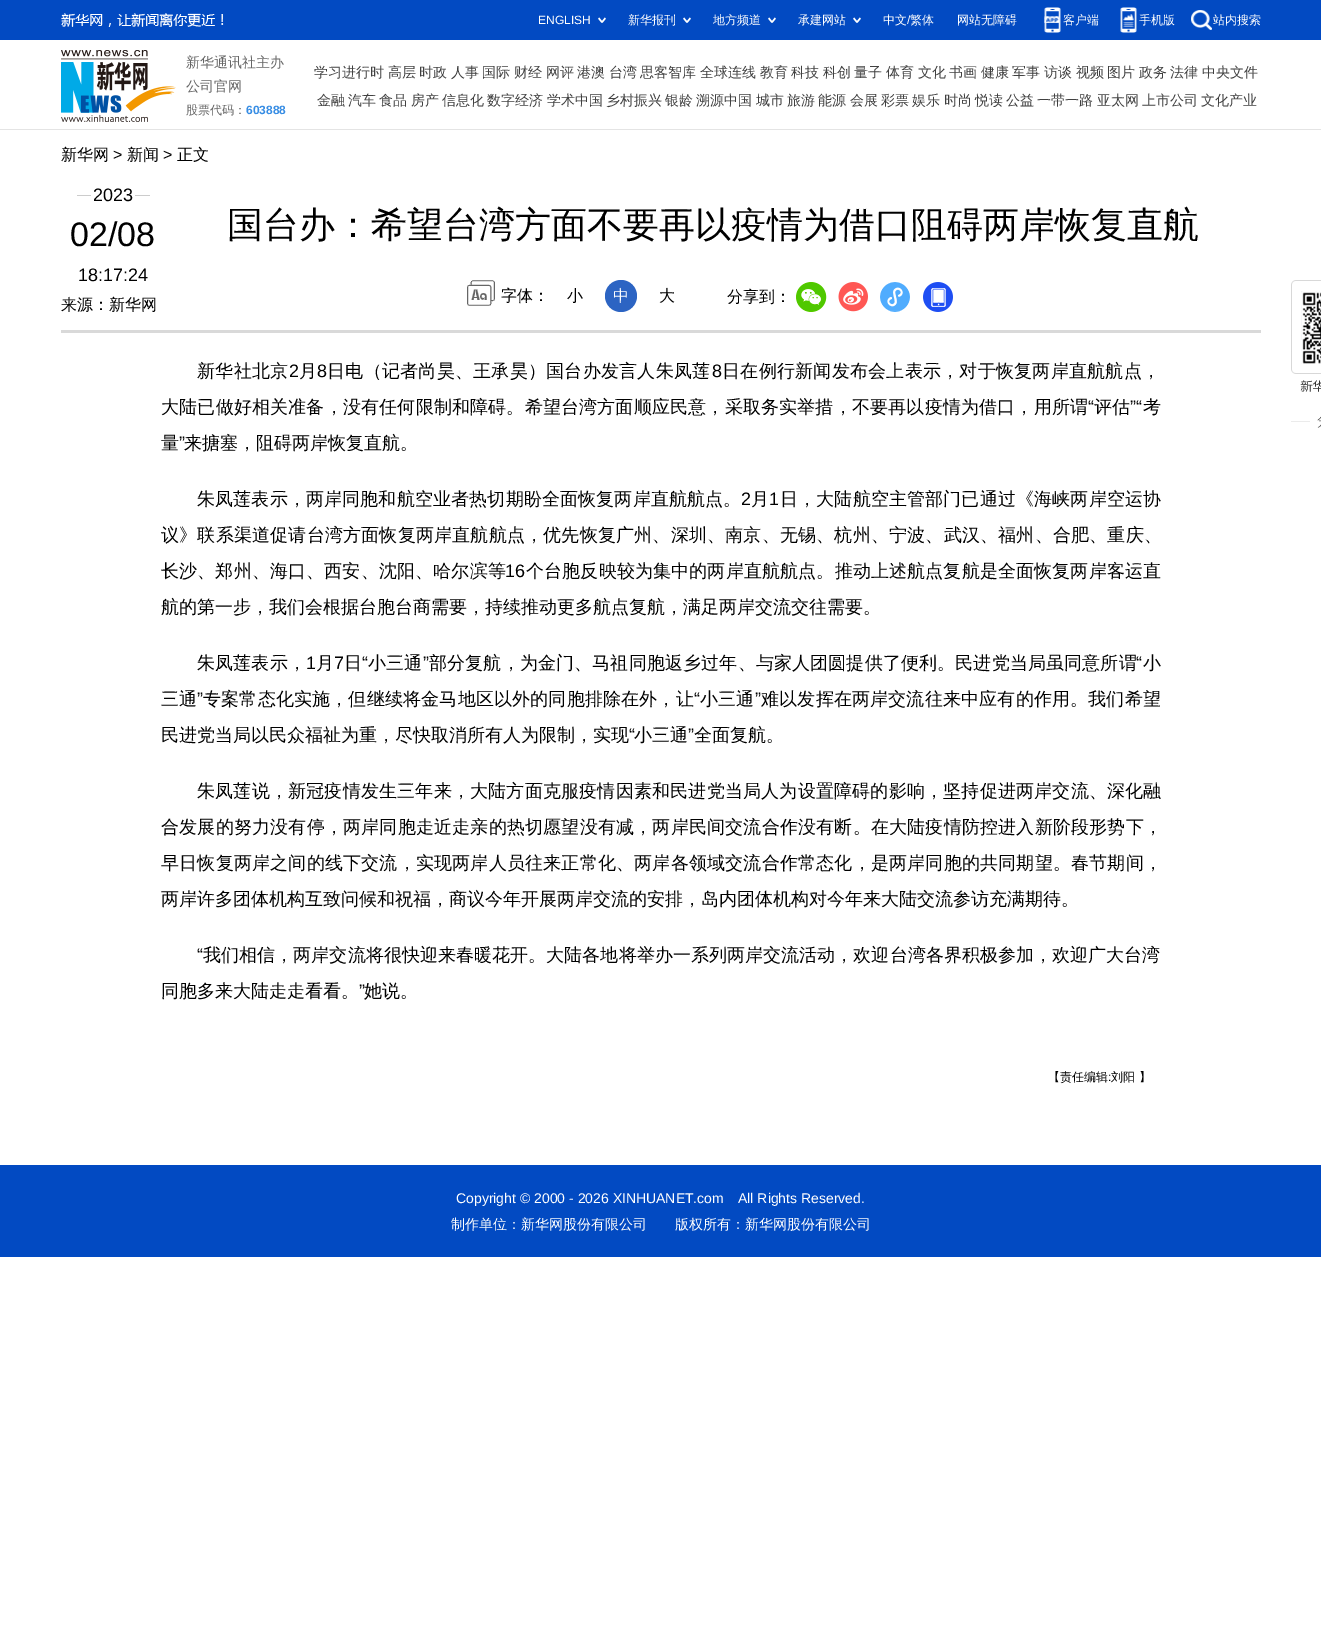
%!PS-Adobe-3.0
%%BoundingBox: 0 0 1321 1644
%%LanguageLevel: 3
%%Pages: 1
%%EndComments
%%BeginProlog
/setink { dup -16 bitshift 255 div exch dup -8 bitshift 255 and 255 div exch 255 and 255 div setrgbcolor } def
/usefont { [ exch dup neg 0 0 3 -1 roll 0 0 ] selectfont } def
/disc { newpath 0 360 arc closepath } def
/drawimage { 5 dict begin { /h /w /y /x /name } { exch def } forall
  gsave x y translate w h scale
  w h 8 [w 0 0 h 0 0] name (r) file false 3 colorimage grestore end } def
%%EndProlog
%%BeginSetup
<< /PageSize [1321 1644] >> setpagedevice
%%EndSetup
%%Page: 1 1
0 1644 translate 1 -1 scale
4 setmiterlimit
16#FFFFFF setink
0 0 1321 1644 rectfill
16#024AC2 setink
0 0 1321 40 rectfill
(img1.raw) 61 13 163 14 drawimage
/LiberationSans-Regular 12 usefont
16#FFFFFF setink
538 24 moveto (ENGLISH) show
(img2.raw) 598 17 8 6 drawimage
/WenQuanYiZenHei-Medium 12 usefont
628 24 moveto (新华报刊) show
(img2.raw) 683 17 8 6 drawimage
713 24 moveto (地方频道) show
(img2.raw) 768 17 8 6 drawimage
798 24 moveto (承建网站) show
(img2.raw) 853 17 8 6 drawimage
883 24 moveto (中文) show
/LiberationSans-Regular 12 usefont
907 24 moveto (/) show
/WenQuanYiZenHei-Medium 12 usefont
910 24 moveto (繁体) show
957 24 moveto (网站无障碍) show
(img3.raw) 1044 7 17 26 drawimage
1063 24 moveto (客户端) show
(img4.raw) 1120 7 17 26 drawimage
1139 24 moveto (手机版) show
(img5.raw) 1191 10 21 20 drawimage
1213 24 moveto (站内搜索) show
16#E4E4E4 setink
0 129 1321 1 rectfill
(img6.raw) 61 50 115 72 drawimage
/WenQuanYiZenHei-Medium 14 usefont
16#666666 setink
186 67 moveto (新华通讯社主办) show
186 91 moveto (公司官网) show
/WenQuanYiZenHei-Medium 12 usefont
186 114 moveto (股票代码：) show
/LiberationSans-Bold 12 usefont
16#378DE4 setink
246 114 moveto (603888) show
/WenQuanYiZenHei-Medium 14 usefont
16#404040 setink
[
    [(学习进行时) 314 77]
    [(高层) 388 77]
    [(时政) 419 77]
    [(人事) 451 77]
    [(国际) 482 77]
    [(财经) 514 77]
    [(网评) 546 77]
    [(港澳) 577 77]
    [(台湾) 609 77]
    [(思客智库) 640 77]
    [(全球连线) 700 77]
    [(教育) 760 77]
    [(科技) 791 77]
    [(科创) 823 77]
    [(量子) 854 77]
    [(体育) 886 77]
    [(文化) 918 77]
    [(书画) 949 77]
    [(健康) 981 77]
    [(军事) 1012 77]
    [(访谈) 1044 77]
    [(视频) 1076 77]
    [(图片) 1107 77]
    [(政务) 1139 77]
    [(法律) 1170 77]
    [(中央文件) 1202 77]
    [(金融) 317 105]
    [(汽车) 348 105]
    [(食品) 379 105]
    [(房产) 411 105]
    [(信息化) 442 105]
    [(数字经济) 487 105]
    [(学术中国) 547 105]
    [(乡村振兴) 606 105]
    [(银龄) 665 105]
    [(溯源中国) 696 105]
    [(城市) 756 105]
    [(旅游) 787 105]
    [(能源) 818 105]
    [(会展) 850 105]
    [(彩票) 881 105]
    [(娱乐) 912 105]
    [(时尚) 944 105]
    [(悦读) 975 105]
    [(公益) 1006 105]
    [(一带一路) 1037 105]
    [(亚太网) 1097 105]
    [(上市公司) 1142 105]
    [(文化产业) 1201 105]
] { aload pop moveto show } forall
16#D9D9D9 setink
61 330 1200 3 rectfill
/WenQuanYiZenHei-Medium 16 usefont
16#000000 setink
61 160 moveto (新华网) show
/LiberationSans-Regular 16 usefont
113 160 moveto (>) show
/WenQuanYiZenHei-Medium 16 usefont
127 160 moveto (新闻) show
/LiberationSans-Regular 16 usefont
163 160 moveto (>) show
/WenQuanYiZenHei-Medium 16 usefont
177 160 moveto (正文) show
16#CCCCCC setink
77 195 73 1 rectfill
16#FFFFFF setink
91 195 44 1 rectfill
/LiberationSans-Regular 18 usefont
16#000000 setink
93 201 moveto (2023) show
/LiberationSans-Regular 34 usefont
70 246 moveto (02/08) show
/LiberationSans-Regular 18 usefont
78 281 moveto (18:17:24) show
/WenQuanYiZenHei-Medium 36 usefont
227 237 moveto (国台办：希望台湾方面不要再以疫情为借口阻碍两岸恢复直航) show
(img7.raw) 467 280 28 26 drawimage
/WenQuanYiZenHei-Medium 16 usefont
501 301 moveto (字体：) show
567 301 moveto (小) show
16#2C64C3 setink
621 296 16 disc fill
16#FFFFFF setink
613 301 moveto (中) show
16#000000 setink
659 301 moveto (大) show
727 302 moveto (分享到：) show
(img8.raw) 796 282 31 30 drawimage
(img9.raw) 838 282 30 30 drawimage
(img10.raw) 880 282 30 30 drawimage
(img11.raw) 923 282 30 30 drawimage
61 310 moveto (来源：新华网) show
/WenQuanYiZenHei-Medium 18 usefont
197 377 moveto 0.25 0 (新华社北京) ashow
/LiberationSans-Regular 18 usefont
289 377 moveto 0.25 0 (2) ashow
/WenQuanYiZenHei-Medium 18 usefont
299 377 moveto 0.25 0 (月) ashow
/LiberationSans-Regular 18 usefont
317 377 moveto 0.25 0 (8) ashow
/WenQuanYiZenHei-Medium 18 usefont
327 377 moveto 0.25 0 (日电（记者尚昊、王承昊）国台办发言人朱凤莲) ashow
/LiberationSans-Regular 18 usefont
712 377 moveto 0.25 0 (8) ashow
/WenQuanYiZenHei-Medium 18 usefont
722 377 moveto 0.25 0 (日在例行新闻发布会上表示，对于恢复两岸直航航点，) ashow
161 413 moveto 0.18 0 (大陆已做好相关准备，没有任何限制和障碍。希望台湾方面顺应民意，采取务实举措，不要再以疫情为借口，用所谓) ashow
/LiberationSans-Regular 18 usefont
1088 413 moveto 0.18 0 (“) ashow
/WenQuanYiZenHei-Medium 18 usefont
1094 413 moveto 0.18 0 (评估) ashow
/LiberationSans-Regular 18 usefont
1130 413 moveto 0.18 0 (”“) ashow
/WenQuanYiZenHei-Medium 18 usefont
1143 413 moveto 0.18 0 (考) ashow
161 449 moveto (量) show
/LiberationSans-Regular 18 usefont
179 449 moveto (”) show
/WenQuanYiZenHei-Medium 18 usefont
184 449 moveto (来搪塞，阻碍两岸恢复直航。) show
197 505 moveto 0.15 0 (朱凤莲表示，两岸同胞和航空业者热切期盼全面恢复两岸直航航点。) ashow
/LiberationSans-Regular 18 usefont
741 505 moveto 0.15 0 (2) ashow
/WenQuanYiZenHei-Medium 18 usefont
751 505 moveto 0.15 0 (月) ashow
/LiberationSans-Regular 18 usefont
769 505 moveto 0.15 0 (1) ashow
/WenQuanYiZenHei-Medium 18 usefont
780 505 moveto 0.15 0 (日，大陆航空主管部门已通过《海峡两岸空运协) ashow
161 541 moveto 0.2 0 (议》联系渠道促请台湾方面恢复两岸直航航点，优先恢复广州、深圳、南京、无锡、杭州、宁波、武汉、福州、合肥、重庆、) ashow
161 577 moveto 0.15 0 (长沙、郑州、海口、西安、沈阳、哈尔滨等) ashow
/LiberationSans-Regular 18 usefont
505 577 moveto 0.15 0 (16) ashow
/WenQuanYiZenHei-Medium 18 usefont
526 577 moveto 0.15 0 (个台胞反映较为集中的两岸直航航点。推动上述航点复航是全面恢复两岸客运直) ashow
161 613 moveto (航的第一步，我们会根据台胞台商需要，持续推动更多航点复航，满足两岸交流交往需要。) show
197 669 moveto 0.15 0 (朱凤莲表示，) ashow
/LiberationSans-Regular 18 usefont
306 669 moveto 0.15 0 (1) ashow
/WenQuanYiZenHei-Medium 18 usefont
316 669 moveto 0.15 0 (月) ashow
/LiberationSans-Regular 18 usefont
334 669 moveto 0.15 0 (7) ashow
/WenQuanYiZenHei-Medium 18 usefont
344 669 moveto 0.15 0 (日) ashow
/LiberationSans-Regular 18 usefont
362 669 moveto 0.15 0 (“) ashow
/WenQuanYiZenHei-Medium 18 usefont
368 669 moveto 0.15 0 (小三通) ashow
/LiberationSans-Regular 18 usefont
423 669 moveto 0.15 0 (”) ashow
/WenQuanYiZenHei-Medium 18 usefont
429 669 moveto 0.15 0 (部分复航，为金门、马祖同胞返乡过年、与家人团圆提供了便利。民进党当局虽同意所谓) ashow
/LiberationSans-Regular 18 usefont
1136 669 moveto 0.15 0 (“) ashow
/WenQuanYiZenHei-Medium 18 usefont
1143 669 moveto 0.15 0 (小) ashow
161 705 moveto 0.18 0 (三通) ashow
/LiberationSans-Regular 18 usefont
197 705 moveto 0.18 0 (”) ashow
/WenQuanYiZenHei-Medium 18 usefont
203 705 moveto 0.18 0 (专案常态化实施，但继续将金马地区以外的同胞排除在外，让) ashow
/LiberationSans-Regular 18 usefont
694 705 moveto 0.18 0 (“) ashow
/WenQuanYiZenHei-Medium 18 usefont
700 705 moveto 0.18 0 (小三通) ashow
/LiberationSans-Regular 18 usefont
755 705 moveto 0.18 0 (”) ashow
/WenQuanYiZenHei-Medium 18 usefont
761 705 moveto 0.18 0 (难以发挥在两岸交流往来中应有的作用。我们希望) ashow
161 741 moveto (民进党当局以民众福祉为重，尽快取消所有人为限制，实现) show
/LiberationSans-Regular 18 usefont
629 741 moveto (“) show
/WenQuanYiZenHei-Medium 18 usefont
634 741 moveto (小三通) show
/LiberationSans-Regular 18 usefont
688 741 moveto (”) show
/WenQuanYiZenHei-Medium 18 usefont
694 741 moveto (全面复航。) show
197 797 moveto 0.2 0 (朱凤莲说，新冠疫情发生三年来，大陆方面克服疫情因素和民进党当局人为设置障碍的影响，坚持促进两岸交流、深化融) ashow
161 833 moveto 0.2 0 (合发展的努力没有停，两岸同胞走近走亲的热切愿望没有减，两岸民间交流合作没有断。在大陆疫情防控进入新阶段形势下，) ashow
161 869 moveto 0.2 0 (早日恢复两岸之间的线下交流，实现两岸人员往来正常化、两岸各领域交流合作常态化，是两岸同胞的共同期望。春节期间，) ashow
161 905 moveto (两岸许多团体机构互致问候和祝福，商议今年开展两岸交流的安排，岛内团体机构对今年来大陆交流参访充满期待。) show
/LiberationSans-Regular 18 usefont
197 961 moveto 0.07 0 (“) ashow
/WenQuanYiZenHei-Medium 18 usefont
203 961 moveto 0.07 0 (我们相信，两岸交流将很快迎来春暖花开。大陆各地将举办一系列两岸交流活动，欢迎台湾各界积极参加，欢迎广大台湾) ashow
161 997 moveto (同胞多来大陆走走看看。) show
/LiberationSans-Regular 18 usefont
359 997 moveto (”) show
/WenQuanYiZenHei-Medium 18 usefont
364 997 moveto (她说。) show
/WenQuanYiZenHei-Medium 12 usefont
1048 1081 moveto (【责任编辑) show
/LiberationSans-Regular 12 usefont
1108 1081 moveto (:) show
/WenQuanYiZenHei-Medium 12 usefont
1111 1081 moveto (刘阳 】) show
(img12.raw) 1291 280 30 112 drawimage
(img13.raw) 1291 416 30 12 drawimage
16#024AC2 setink
0 1165 1321 92 rectfill
/LiberationSans-Regular 14 usefont
16#FFFFFF setink
456 1203 moveto (Copyright © 2000 - 2026 XINHUANET.com) show
738 1203 moveto (All Rights Reserved.) show
/WenQuanYiZenHei-Medium 14 usefont
451 1229 moveto (制作单位：新华网股份有限公司　　版权所有：新华网股份有限公司) show
showpage
%%EOF
